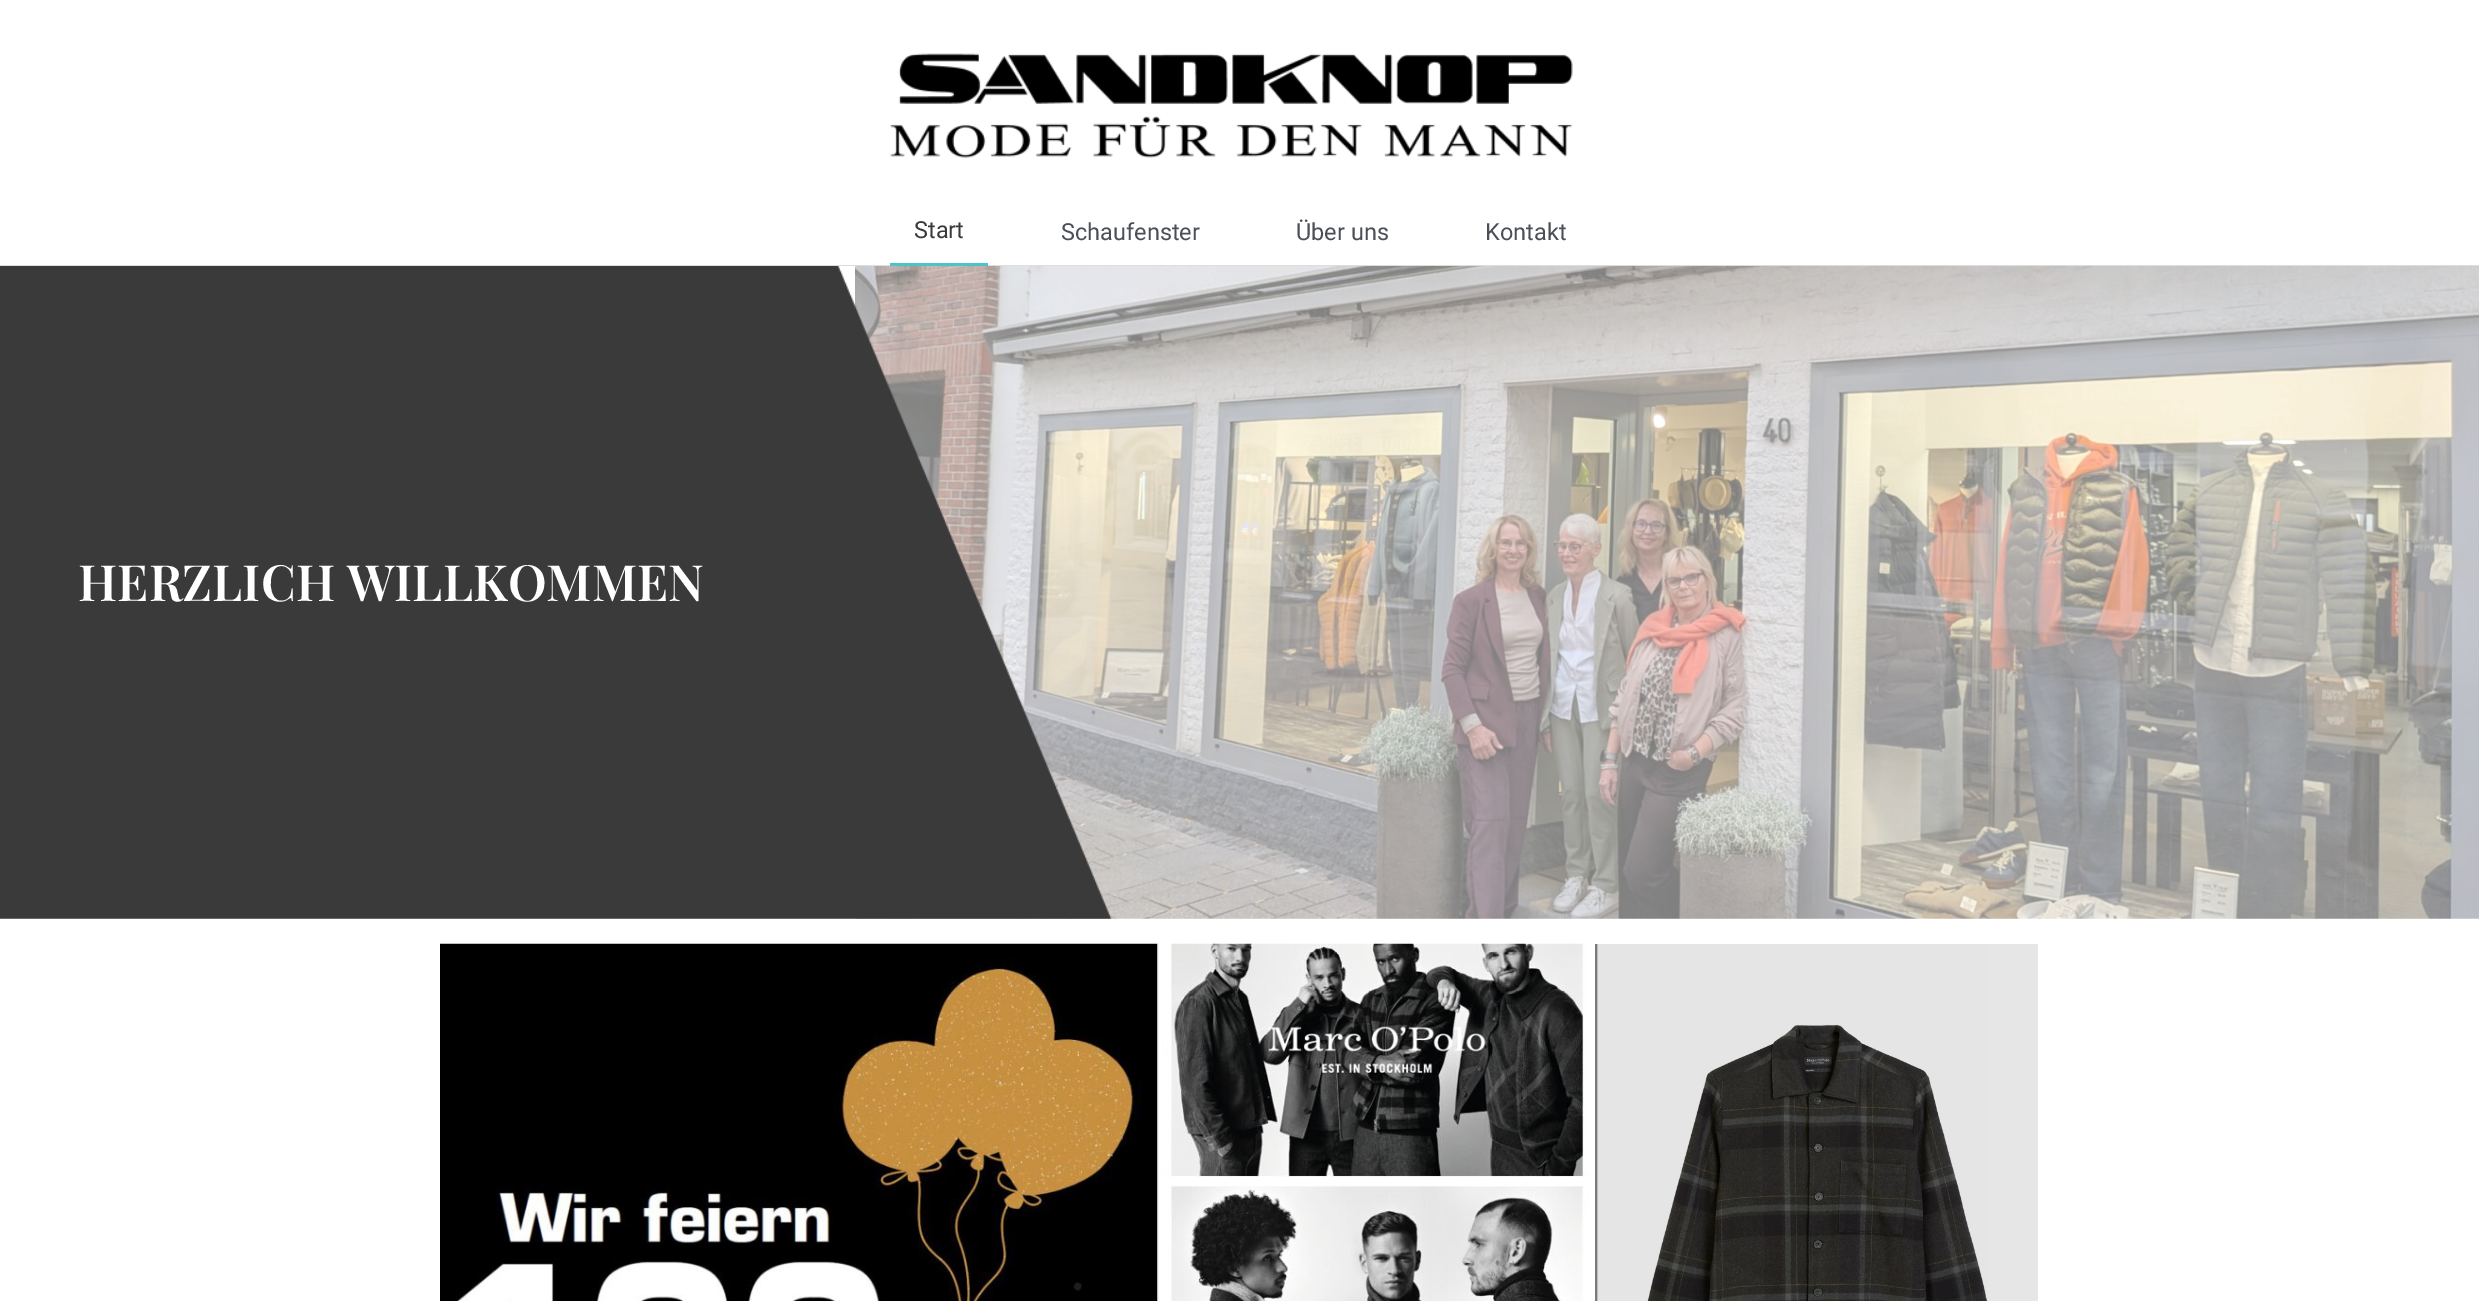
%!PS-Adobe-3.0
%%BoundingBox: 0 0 2479 1301
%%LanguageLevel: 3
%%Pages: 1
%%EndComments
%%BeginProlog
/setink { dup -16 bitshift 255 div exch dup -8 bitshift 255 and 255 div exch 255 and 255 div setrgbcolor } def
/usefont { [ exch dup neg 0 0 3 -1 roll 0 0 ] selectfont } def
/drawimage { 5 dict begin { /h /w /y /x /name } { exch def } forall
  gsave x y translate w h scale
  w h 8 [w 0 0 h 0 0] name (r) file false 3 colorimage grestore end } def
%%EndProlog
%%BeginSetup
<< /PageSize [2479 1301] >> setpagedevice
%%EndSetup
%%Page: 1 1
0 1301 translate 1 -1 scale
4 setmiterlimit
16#FFFFFF setink
0 0 2479 1301 rectfill
16#E6E6E6 setink
1988 944 50 357 rectfill
16#DDDDDD setink
0 265 2479 1 rectfill
(img1.raw) 890 53 683 105 drawimage
16#4CC3C9 setink
890 263 98 3 rectfill
/Roboto-Regular 23.5 usefont
16#3A3A3A setink
914 238 moveto (Start) show
16#4B4F58 setink
[
    [(Schaufenster) 1061 240]
    [(Über uns) 1296 240]
    [(Kontakt) 1485 240]
] { aload pop moveto show } forall
(img2.raw) 855 266 1624 653 drawimage
(img3.raw) 0 266 1112 653 drawimage
/PlayfairDisplay-SemiBold 50 usefont
16#FFFFFF setink
78 601 moveto (HERZLICH WILLKOMMEN) show
(img4.raw) 440 943 718 358 drawimage
(img5.raw) 1157 943 439 358 drawimage
16#7A7A7A setink
1595 944 3 357 rectfill
(img6.raw) 1597 944 391 357 drawimage
showpage
%%EOF
